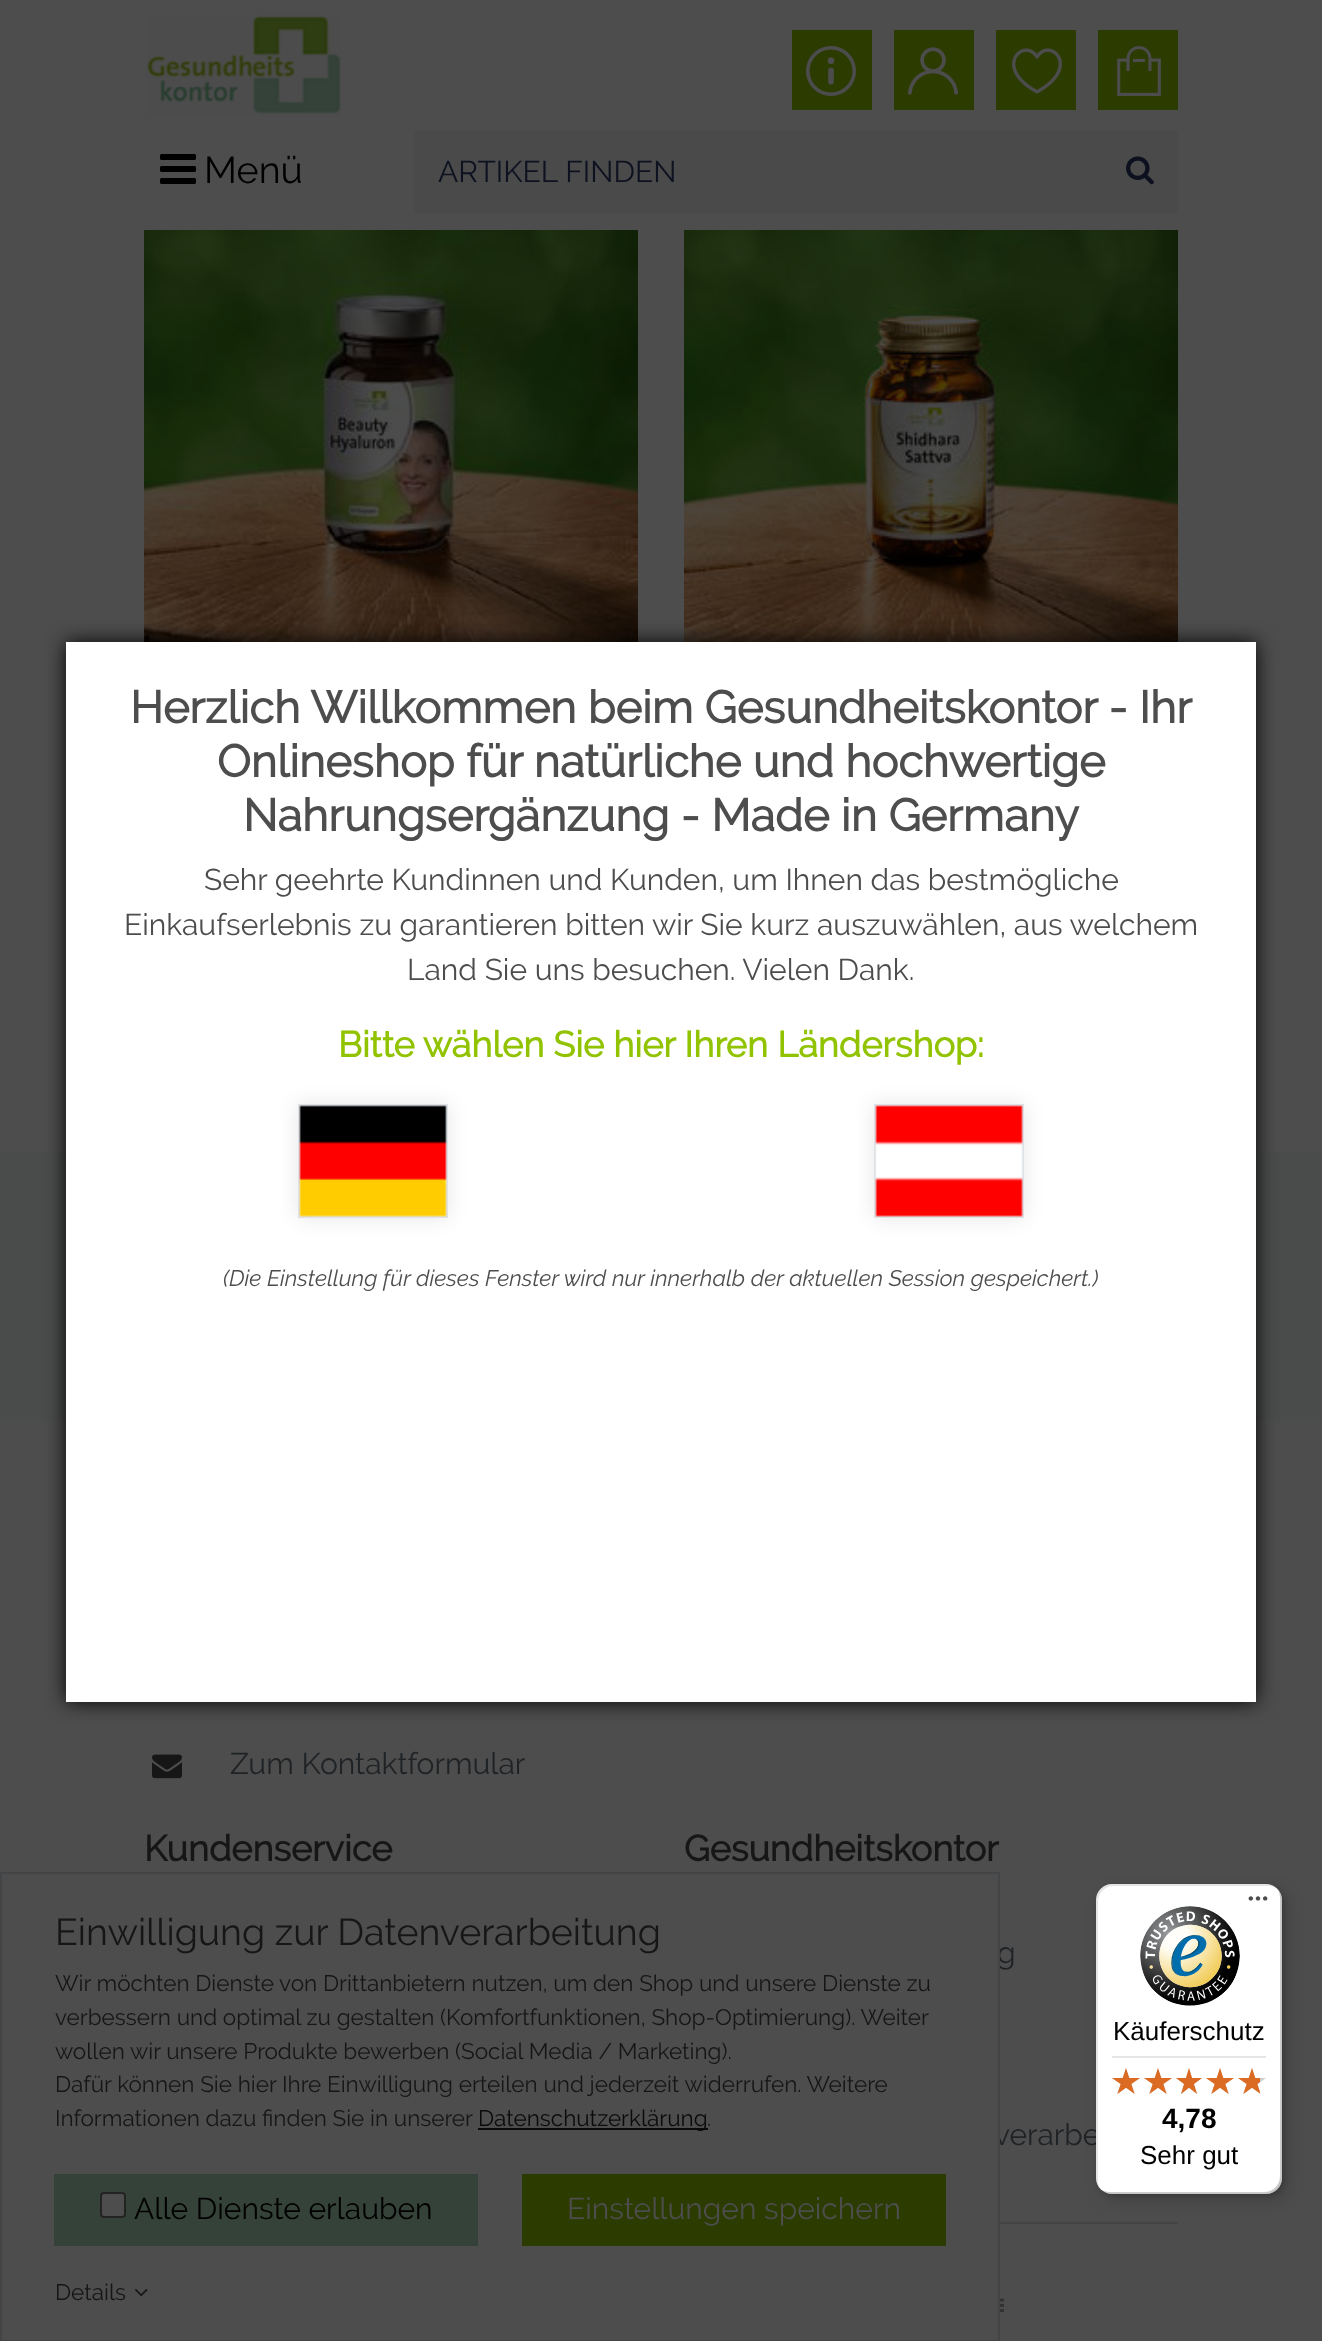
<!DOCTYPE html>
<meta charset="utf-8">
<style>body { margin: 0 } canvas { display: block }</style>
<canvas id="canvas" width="1322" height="2341"></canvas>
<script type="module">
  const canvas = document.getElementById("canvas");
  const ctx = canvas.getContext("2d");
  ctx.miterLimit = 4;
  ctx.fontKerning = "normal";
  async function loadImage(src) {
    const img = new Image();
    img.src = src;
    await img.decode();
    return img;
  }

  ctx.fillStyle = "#4d4d4d";
  ctx.fillRect(0, 0, 1322, 2341);
  ctx.drawImage(await loadImage("img1.png"), 147, 15, 194, 100);
  ctx.fillStyle = "#2c3b00";
  ctx.fillRect(792, 30, 80, 80);
  ctx.drawImage(await loadImage("img2.png"), 806, 46, 50, 50);
  ctx.fillRect(894, 30, 80, 80);
  ctx.drawImage(await loadImage("img3.png"), 908, 47, 50, 48);
  ctx.fillRect(996, 30, 80, 80);
  ctx.drawImage(await loadImage("img4.png"), 1012, 48, 50, 46);
  ctx.fillRect(1098, 30, 80, 80);
  ctx.drawImage(await loadImage("img5.png"), 1117, 46, 44, 50);
  ctx.drawImage(await loadImage("img6.png"), 160, 154, 36, 30);
  ctx.font = "37.5px Raleway";
  ctx.fillStyle = "#000000";
  ctx.fillText("Menü", 204, 183);
  ctx.fillStyle = "#4a4a4a";
  ctx.fillRect(414, 130, 764, 84);
  ctx.font = "30px Raleway";
  ctx.fillStyle = "#0d1120";
  ctx.fillText("ARTIKEL FINDEN", 438, 182);
  ctx.drawImage(await loadImage("img7.png"), 1126, 156, 28, 29);
  ctx.fillStyle = "#202326";
  ctx.fillText("verarbe", 994, 2145);
  ctx.fillStyle = "#4d4d4d";
  ctx.fillRect(994, 2129, 4, 9);
  ctx.fillStyle = "#202326";
  ctx.fillText("g", 997, 1963);
  ctx.strokeStyle = "#434445";
  ctx.lineWidth = 2;
  ctx.strokeRect(1, 1873, 998, 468);
  ctx.font = "37.5px Raleway";
  ctx.fillStyle = "#161616";
  ctx.fillText("Einwilligung zur Datenverarbeitung", 55, 1945);
  ctx.font = "22.5px Raleway";
  ctx.fillText("Wir möchten Dienste von Drittanbietern nutzen, um den Shop und unsere Dienste zu", 55, 1991);
  ctx.fillText("verbessern und optimal zu gestalten (Komfortfunktionen, Shop-Optimierung). Weiter", 55, 2025);
  ctx.fillText("wollen wir unsere Produkte bewerben (Social Media / Marketing).", 55, 2059);
  ctx.fillText("Dafür können Sie hier Ihre Einwilligung erteilen und jederzeit widerrufen. Weitere", 55, 2092);
  ctx.fillText("Informationen dazu finden Sie in unserer", 55, 2126);
  ctx.fillStyle = "#0a0b0c";
  ctx.fillRect(478, 2128, 230, 2);
  ctx.fillText("Datenschutzerklärung", 478, 2126);
  ctx.fillStyle = "#161616";
  ctx.fillText(".", 707, 2126);
  ctx.fillStyle = "#354239";
  ctx.fillRect(54, 2174, 424, 72);
  ctx.fillStyle = "#4d4d4d";
  ctx.beginPath();
  ctx.roundRect(101, 2193, 24, 24, 3);
  ctx.fill();
  ctx.strokeStyle = "#232323";
  ctx.stroke();
  ctx.font = "30px Raleway";
  ctx.fillStyle = "#000000";
  ctx.fillText("Alle Dienste erlauben", 134, 2219);
  ctx.fillStyle = "#2c3b00";
  ctx.fillRect(522, 2174, 424, 72);
  ctx.fillStyle = "#4d4d4d";
  ctx.fillText("Einstellungen speichern", 567, 2219);
  ctx.font = "22.5px Raleway";
  ctx.fillStyle = "#161616";
  ctx.fillText("Details", 55, 2300);
  ctx.drawImage(await loadImage("img8.png"), 135, 2289, 13, 8);
  ctx.drawImage(await loadImage("img9.png"), 144, 230, 494, 412);
  ctx.drawImage(await loadImage("img10.png"), 684, 230, 494, 412);
  ctx.fillStyle = "#4a4b4b";
  ctx.fillRect(0, 1152, 1322, 268);
  ctx.fillStyle = "rgba(0, 0, 0, 0.95)";
  ctx.filter = "blur(10px)";
  ctx.beginPath();
  ctx.rect(66, 642, 1190, 1060);
  ctx.fill();
  ctx.filter = "none";
  ctx.fillStyle = "#ffffff";
  ctx.fillRect(66, 642, 1190, 1060);
  ctx.font = "bold 45px Raleway";
  ctx.fillStyle = "#4d4d4d";
  ctx.fillText("Herzlich Willkommen beim Gesundheitskontor - Ihr", 130, 723);
  ctx.fillText("Onlineshop für natürliche und hochwertige", 217, 777);
  ctx.fillText("Nahrungsergänzung - Made in Germany", 243, 831);
  ctx.font = "30px Raleway";
  ctx.fillText("Sehr geehrte Kundinnen und Kunden, um Ihnen das bestmögliche", 204, 890);
  ctx.fillText("Einkaufserlebnis zu garantieren bitten wir Sie kurz auszuwählen, aus welchem", 124, 935);
  ctx.fillText("Land Sie uns besuchen. Vielen Dank.", 407, 980);
  ctx.font = "bold 36px Raleway";
  ctx.fillStyle = "#91c300";
  ctx.fillText("Bitte wählen Sie hier Ihren Ländershop:", 338, 1057);
  ctx.fillStyle = "rgba(0, 0, 0, 0.1)";
  ctx.filter = "blur(10px)";
  ctx.beginPath();
  ctx.rect(298, 1104, 150, 114);
  ctx.fill();
  ctx.filter = "none";
  ctx.strokeStyle = "#dee2e6";
  ctx.strokeRect(299, 1105, 148, 112);
  ctx.drawImage(await loadImage("img11.png"), 299, 1105, 148, 112);
  ctx.filter = "blur(10px)";
  ctx.beginPath();
  ctx.rect(874, 1104, 150, 114);
  ctx.fill();
  ctx.filter = "none";
  ctx.strokeRect(875, 1105, 148, 112);
  ctx.drawImage(await loadImage("img12.png"), 875, 1105, 148, 112);
  ctx.font = "italic 22.5px Raleway";
  ctx.fillStyle = "#4d4d4d";
  ctx.fillText("(Die Einstellung für dieses Fenster wird nur innerhalb der aktuellen Session gespeichert.)", 223, 1286);
  ctx.drawImage(await loadImage("img13.png"), 152, 1754, 30, 25);
  ctx.font = "30px Raleway";
  ctx.fillStyle = "#202326";
  ctx.fillText("Zum Kontaktformular", 230, 1774);
  ctx.font = "bold 36px Raleway";
  ctx.fillStyle = "#161616";
  ctx.fillText("Kundenservice", 144, 1861);
  ctx.fillText("Gesundheitskontor", 684, 1861);
  ctx.fillStyle = "#434445";
  ctx.fillRect(1000, 2222, 178, 2);
  ctx.drawImage(await loadImage("img14.png"), 1000, 2298, 4, 14);
  ctx.fillStyle = "rgba(0, 0, 0, 0.15)";
  ctx.filter = "blur(8px)";
  ctx.beginPath();
  ctx.roundRect(1102, 1890, 186, 310, 16);
  ctx.fill();
  ctx.filter = "none";
  ctx.filter = "blur(2px)";
  ctx.beginPath();
  ctx.roundRect(1098, 1886, 186, 310, 16);
  ctx.fill();
  ctx.filter = "none";
  ctx.fillStyle = "#ffffff";
  ctx.beginPath();
  ctx.roundRect(1096, 1884, 186, 310, 16);
  ctx.fill();
  ctx.fillStyle = "rgba(0, 0, 0, 0.1)";
  ctx.beginPath();
  ctx.moveTo(1114, 1886);
  ctx.lineTo(1268, 1886);
  ctx.bezierCurveTo(1272, 1886, 1275, 1887, 1278, 1889);
  ctx.bezierCurveTo(1275, 1886, 1271, 1884, 1266, 1884);
  ctx.lineTo(1112, 1884);
  ctx.bezierCurveTo(1103, 1884, 1096, 1891, 1096, 1900);
  ctx.lineTo(1096, 2178);
  ctx.bezierCurveTo(1096, 2183, 1098, 2187, 1101, 2190);
  ctx.bezierCurveTo(1099, 2187, 1098, 2184, 1098, 2180);
  ctx.lineTo(1098, 1902);
  ctx.bezierCurveTo(1098, 1893, 1105, 1886, 1114, 1886);
  ctx.closePath();
  ctx.fill();
  ctx.fillStyle = "rgba(0, 0, 0, 0.2)";
  ctx.beginPath();
  ctx.moveTo(1100, 2189);
  ctx.bezierCurveTo(1103, 2192, 1107, 2194, 1112, 2194);
  ctx.lineTo(1266, 2194);
  ctx.bezierCurveTo(1275, 2194, 1282, 2187, 1282, 2178);
  ctx.lineTo(1282, 1900);
  ctx.bezierCurveTo(1282, 1895, 1280, 1891, 1277, 1888);
  ctx.bezierCurveTo(1279, 1891, 1280, 1894, 1280, 1898);
  ctx.lineTo(1280, 2176);
  ctx.bezierCurveTo(1280, 2185, 1273, 2192, 1264, 2192);
  ctx.lineTo(1110, 2192);
  ctx.bezierCurveTo(1106, 2192, 1103, 2191, 1100, 2189);
  ctx.closePath();
  ctx.fill();
  ctx.fillStyle = "rgba(50, 50, 50, 0.2)";
  ctx.beginPath();
  ctx.moveTo(1101, 2189);
  ctx.bezierCurveTo(1104, 2192, 1108, 2194, 1112, 2194);
  ctx.lineTo(1266, 2194);
  ctx.bezierCurveTo(1275, 2194, 1282, 2187, 1282, 2178);
  ctx.lineTo(1282, 1900);
  ctx.bezierCurveTo(1282, 1896, 1280, 1892, 1277, 1889);
  ctx.bezierCurveTo(1280, 1892, 1281, 1895, 1281, 1899);
  ctx.lineTo(1281, 2177);
  ctx.bezierCurveTo(1281, 2186, 1274, 2193, 1265, 2193);
  ctx.lineTo(1111, 2193);
  ctx.bezierCurveTo(1107, 2193, 1104, 2192, 1101, 2189);
  ctx.closePath();
  ctx.fill();
  ctx.fillStyle = "rgba(255, 255, 255, 0.3)";
  ctx.beginPath();
  ctx.moveTo(1101, 2189);
  ctx.bezierCurveTo(1104, 2192, 1108, 2194, 1112, 2194);
  ctx.lineTo(1266, 2194);
  ctx.bezierCurveTo(1275, 2194, 1282, 2187, 1282, 2178);
  ctx.lineTo(1282, 1900);
  ctx.bezierCurveTo(1282, 1896, 1280, 1892, 1277, 1889);
  ctx.bezierCurveTo(1280, 1892, 1281, 1895, 1281, 1899);
  ctx.lineTo(1281, 2177);
  ctx.bezierCurveTo(1281, 2186, 1274, 2193, 1265, 2193);
  ctx.lineTo(1111, 2193);
  ctx.bezierCurveTo(1107, 2193, 1104, 2192, 1101, 2189);
  ctx.closePath();
  ctx.fill();
  ctx.drawImage(await loadImage("img15.png"), 1248, 1896, 20, 5);
  ctx.drawImage(await loadImage("img16.png"), 1140, 1906, 100, 100);
  ctx.font = "26px Liberation Sans";
  ctx.fillStyle = "#000000";
  ctx.fillText("Käuferschutz", 1113, 2040);
  ctx.fillStyle = "#e5e5e5";
  ctx.fillRect(1112, 2056, 154, 2);
  ctx.drawImage(await loadImage("img17.png"), 1112, 2068, 28, 26);
  ctx.drawImage(await loadImage("img17.png"), 1144, 2068, 28, 26);
  ctx.drawImage(await loadImage("img18.png"), 1176, 2068, 26, 26);
  ctx.drawImage(await loadImage("img17.png"), 1206, 2068, 28, 26);
  ctx.drawImage(await loadImage("img17.png"), 1238, 2068, 28, 26);
  ctx.drawImage(await loadImage("img19.png"), 1112, 2068, 28, 26);
  ctx.drawImage(await loadImage("img19.png"), 1144, 2068, 28, 26);
  ctx.drawImage(await loadImage("img20.png"), 1176, 2068, 26, 26);
  ctx.drawImage(await loadImage("img19.png"), 1206, 2068, 28, 26);
  ctx.drawImage(await loadImage("img21.png"), 1238, 2068, 22, 26);
  ctx.font = "bold 28px Liberation Sans";
  ctx.fillStyle = "#000000";
  ctx.fillText("4,78", 1162, 2128);
  ctx.font = "26px Liberation Sans";
  ctx.fillText("Sehr gut", 1140, 2164);
</script>
